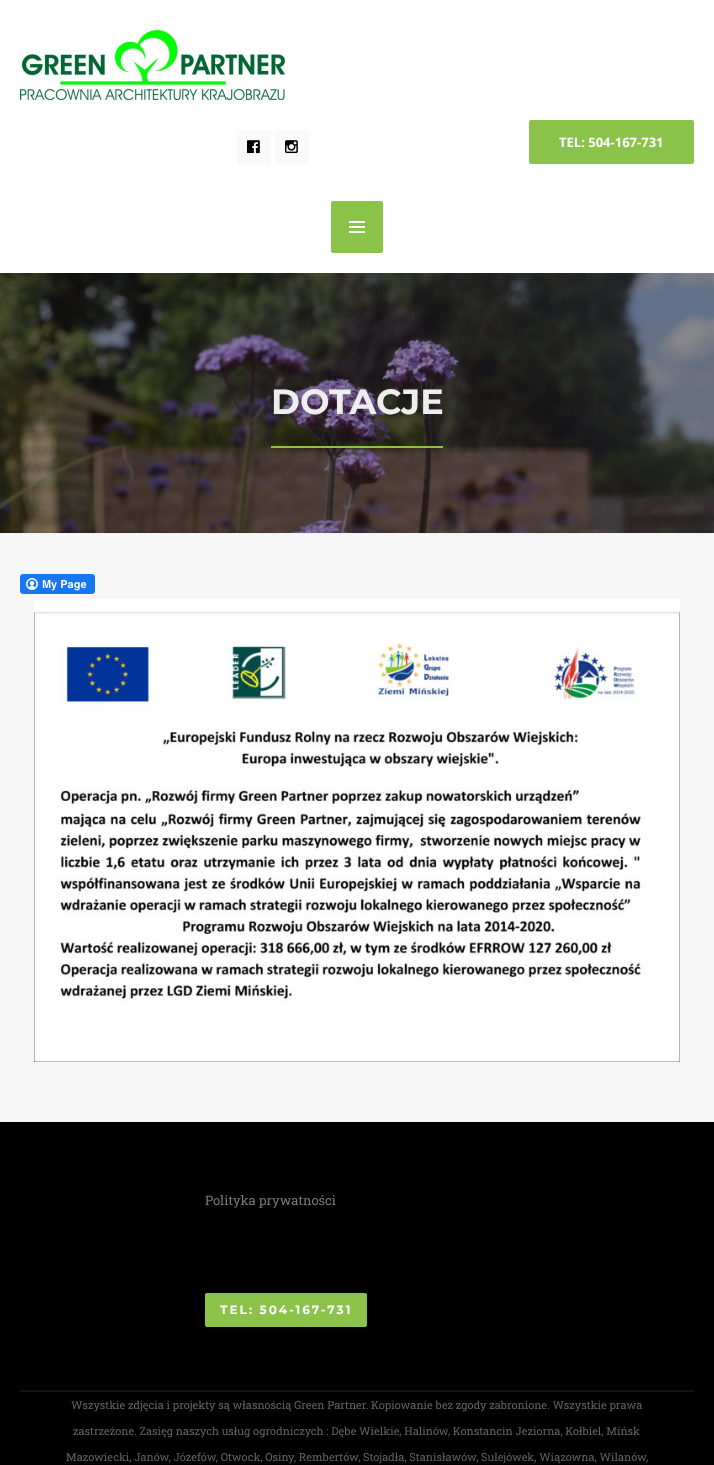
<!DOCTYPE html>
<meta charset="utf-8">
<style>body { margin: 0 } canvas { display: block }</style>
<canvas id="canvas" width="714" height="1465"></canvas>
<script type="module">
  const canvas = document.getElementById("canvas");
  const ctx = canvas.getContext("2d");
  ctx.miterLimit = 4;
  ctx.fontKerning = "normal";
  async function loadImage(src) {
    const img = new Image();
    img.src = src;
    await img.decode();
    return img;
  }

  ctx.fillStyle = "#f7f7f7";
  ctx.fillRect(0, 0, 714, 1465);
  ctx.fillStyle = "#ffffff";
  ctx.fillRect(0, 0, 714, 273);
  ctx.drawImage(await loadImage("img1.png"), 20, 30, 265, 70);
  ctx.fillStyle = "#fafafa";
  ctx.fillRect(237, 130, 34, 34);
  ctx.drawImage(await loadImage("img2.png"), 247, 140, 13, 14);
  ctx.fillRect(275, 130, 34, 34);
  ctx.drawImage(await loadImage("img3.png"), 285, 140, 13, 14);
  ctx.fillStyle = "#8bc34a";
  ctx.beginPath();
  ctx.roundRect(529, 120, 165, 44, 2);
  ctx.fill();
  ctx.font = "bold 13px Open Sans";
  ctx.fillStyle = "#ffffff";
  ctx.fillText("TEL: 504-167-731", 559, 147);
  ctx.fillStyle = "#8bc34a";
  ctx.beginPath();
  ctx.roundRect(331, 201, 52, 52, 2);
  ctx.fill();
  ctx.drawImage(await loadImage("img4.png"), 349, 221, 16, 12);
  ctx.fillStyle = "#0a0000";
  ctx.fillRect(0, 273, 714, 260);
  ctx.fillStyle = "#efefef";
  ctx.fillRect(0, 533, 714, 1);
  ctx.drawImage(await loadImage("img5.png"), 0, 273, 714, 260);
  ctx.fillStyle = "#8bc34a";
  ctx.fillRect(271, 446, 172, 2);
  ctx.font = "bold 35px Montserrat";
  ctx.fillStyle = "#eeeeee";
  ctx.fillText("DOTACJE", 271, 414);
  ctx.drawImage(await loadImage("img6.png"), 20, 574, 75, 20);
  ctx.drawImage(await loadImage("img7.png"), 34, 599, 646, 463);
  ctx.fillStyle = "#000000";
  ctx.fillRect(0, 1122, 714, 343);
  ctx.font = "13px Roboto Slab";
  ctx.fillStyle = "#7a7a7a";
  ctx.fillText("Polityka prywatności", 205, 1205);
  ctx.fillStyle = "#8bc34a";
  ctx.beginPath();
  ctx.roundRect(205, 1293, 162, 34, 2);
  ctx.fill();
  ctx.letterSpacing = "2px";
  ctx.font = "bold 12px Montserrat";
  ctx.fillStyle = "#ffffff";
  ctx.fillText("TEL: 504-167-731", 220, 1314);
  ctx.fillStyle = "#141414";
  ctx.fillRect(20, 1390, 674, 2);
  ctx.letterSpacing = "0px";
  ctx.font = "11px Roboto Slab";
  ctx.fillStyle = "#636363";
  ctx.fillText("Wszystkie zdjęcia i projekty są własnością Green Partner. Kopiowanie bez zgody zabronione. Wszystkie prawa", 71, 1409);
  ctx.fillText("zastrzeżone. Zasięg naszych usług ogrodniczych : Dębe Wielkie, Halinów, Konstancin Jeziorna, Kołbiel, Mińsk", 73, 1435);
  ctx.fillText("Mazowiecki, Janów, Józefów, Otwock, Osiny, Rembertów, Stojadła, Stanisławów, Sulejówek, Wiązowna, Wilanów,", 66, 1461);
</script>
